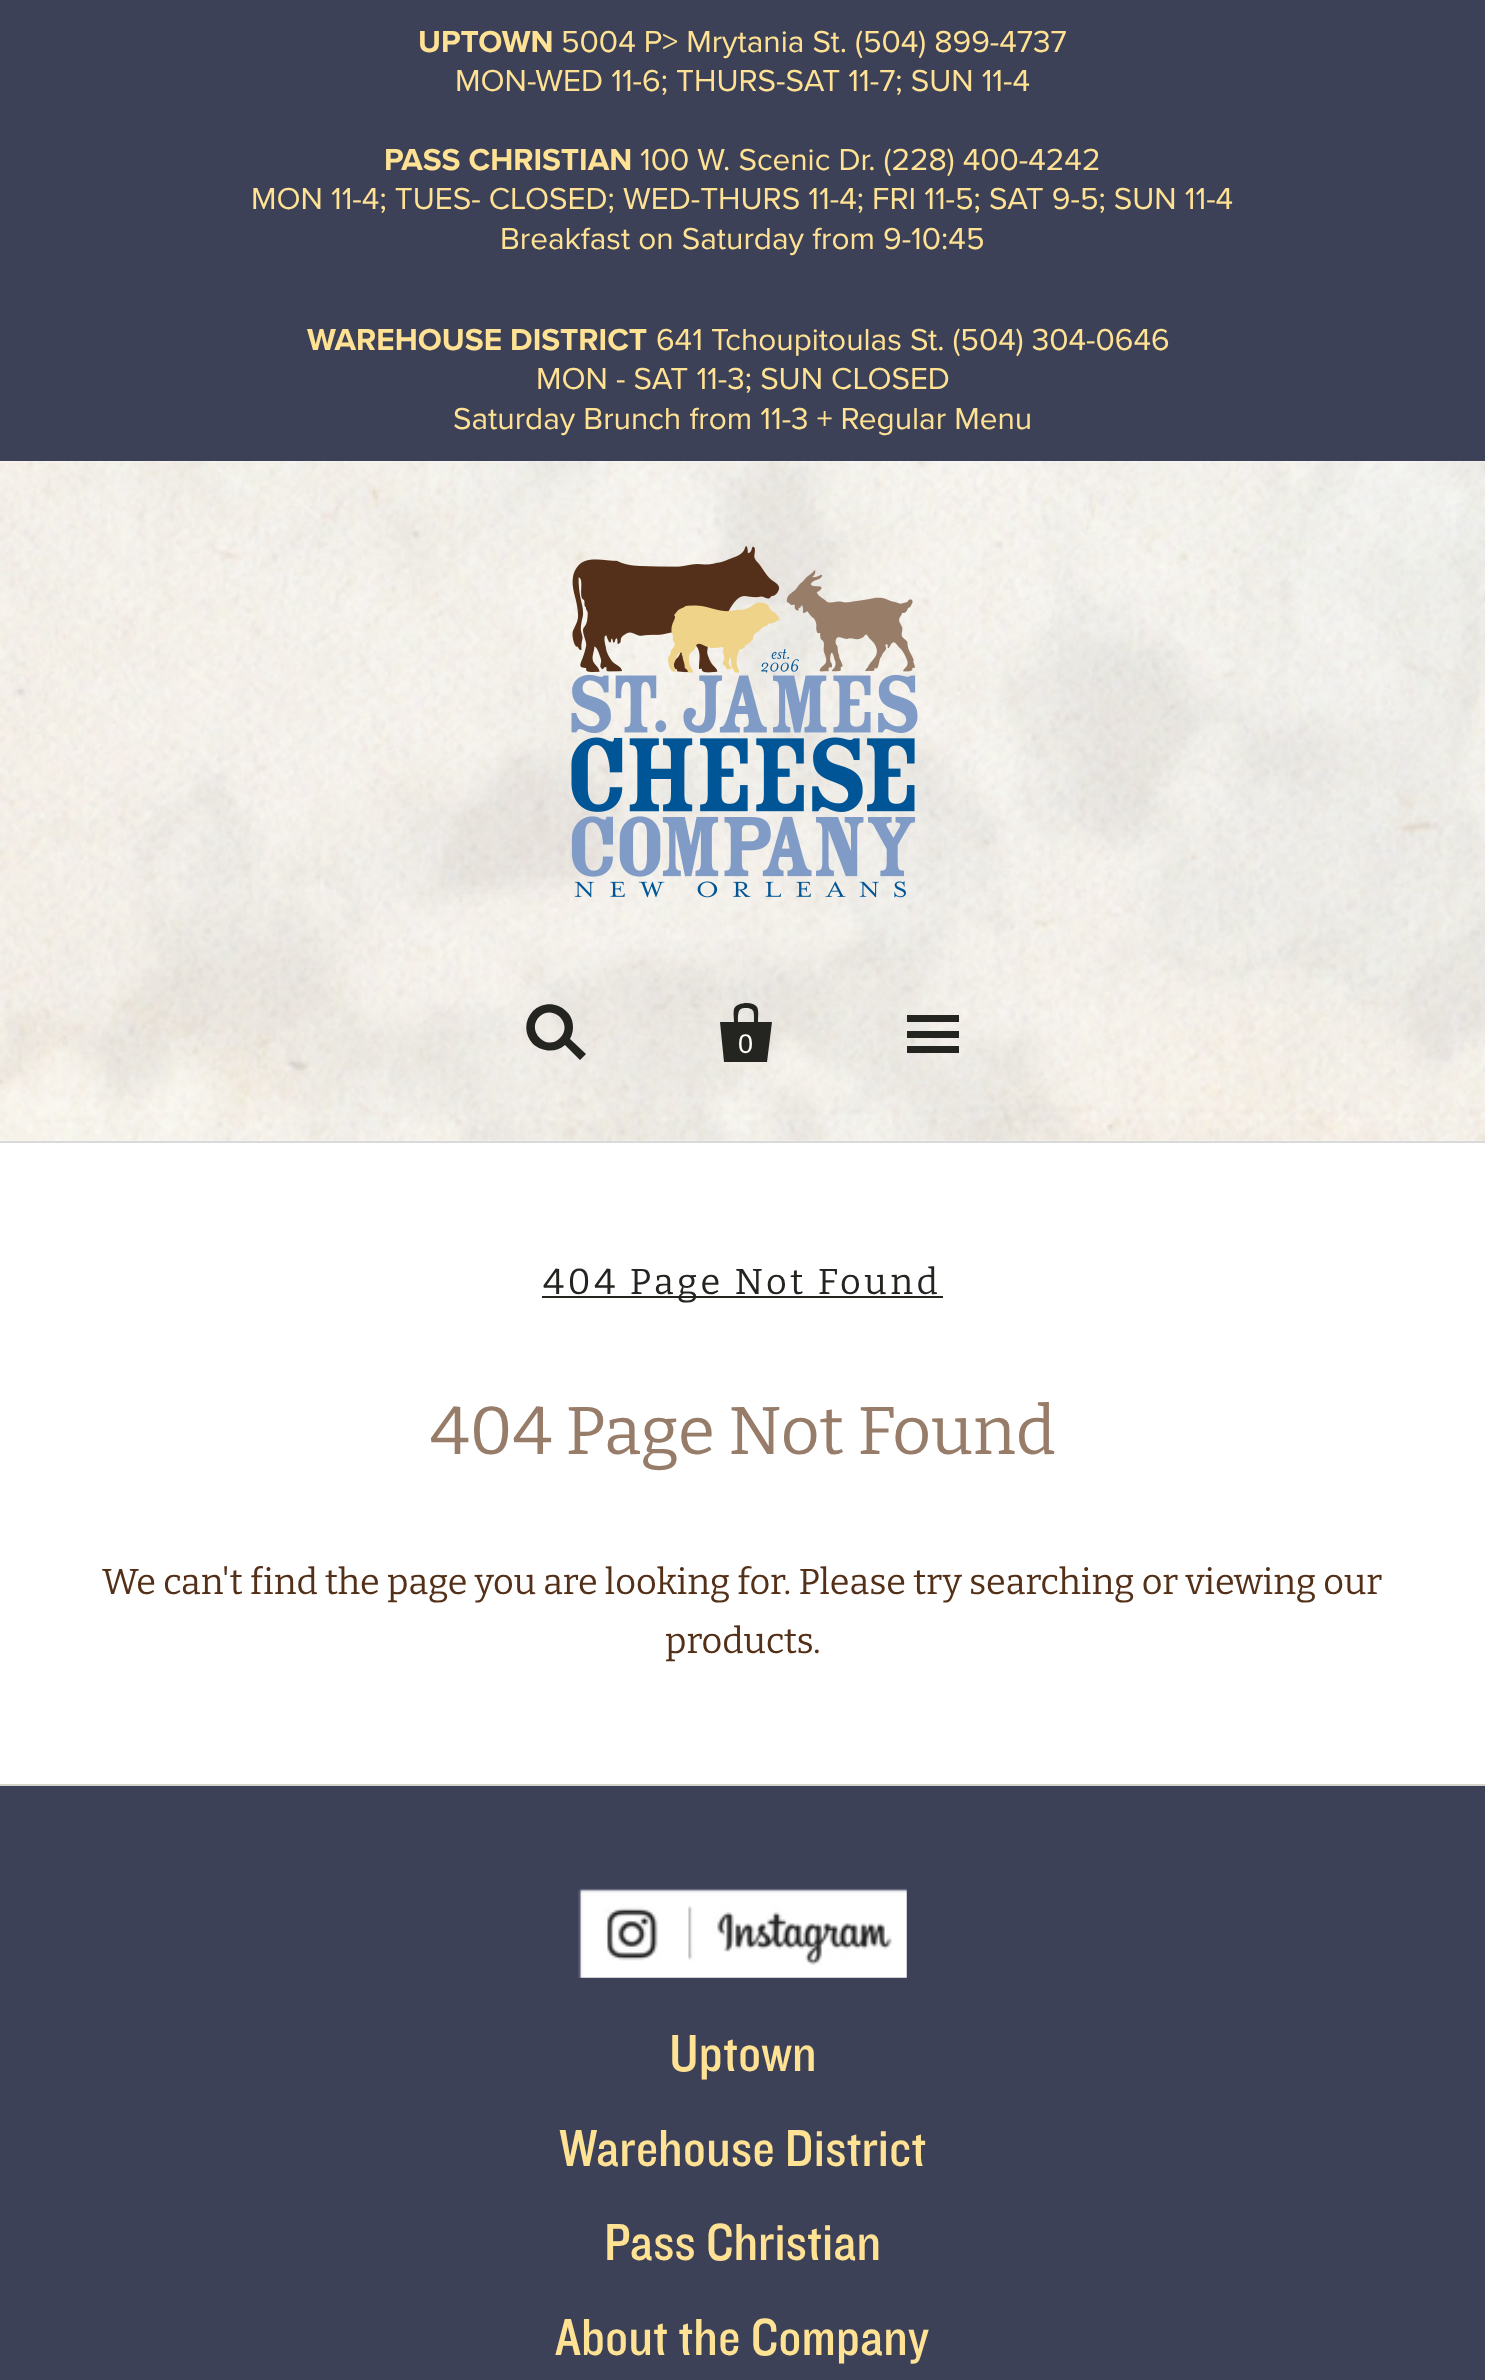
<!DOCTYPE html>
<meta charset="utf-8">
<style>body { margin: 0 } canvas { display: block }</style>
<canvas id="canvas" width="1485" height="2380"></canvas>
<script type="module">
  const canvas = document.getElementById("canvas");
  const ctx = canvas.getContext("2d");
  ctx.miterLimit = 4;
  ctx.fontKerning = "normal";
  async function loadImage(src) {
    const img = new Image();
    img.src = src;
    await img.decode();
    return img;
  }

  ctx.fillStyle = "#ffffff";
  ctx.fillRect(0, 0, 1485, 2380);
  ctx.fillStyle = "#3c4158";
  ctx.fillRect(0, 0, 1485, 461);
  ctx.font = "bold 31.5px Proxima Nova";
  ctx.fillStyle = "#ffe293";
  ctx.fillText("UPTOWN", 418, 52);
  ctx.font = "31.5px Proxima Nova";
  ctx.fillText("5004 P> Mrytania St. (504) 899-4737", 561, 52);
  ctx.fillText("MON-WED 11-6; THURS-SAT 11-7; SUN 11-4", 455, 91);
  ctx.font = "bold 31.5px Proxima Nova";
  ctx.fillText("PASS CHRISTIAN", 384, 170);
  ctx.font = "31.5px Proxima Nova";
  ctx.fillText("100 W. Scenic Dr. (228) 400-4242", 640, 170);
  ctx.fillText("MON 11-4; TUES- CLOSED; WED-THURS 11-4; FRI 11-5; SAT 9-5; SUN 11-4", 251, 209);
  ctx.fillText("Breakfast on Saturday from 9-10:45", 500, 249);
  ctx.font = "bold 31.5px Proxima Nova";
  ctx.fillText("WAREHOUSE DISTRICT", 307, 350);
  ctx.font = "31.5px Proxima Nova";
  ctx.fillText("641 Tchoupitoulas St. (504) 304-0646", 656, 350);
  ctx.fillText("MON - SAT 11-3; SUN CLOSED", 536, 389);
  ctx.fillText("Saturday Brunch from 11-3 + Regular Menu", 453, 429);
  ctx.drawImage(await loadImage("img1.png"), 0, 461, 1485, 680);
  ctx.drawImage(await loadImage("img2.png"), 571, 546, 347, 352);
  ctx.fillStyle = "#242420";
  ctx.beginPath();
  ctx.moveTo(570, 1039);
  ctx.bezierCurveTo(575, 1030, 574, 1018, 566, 1011);
  ctx.bezierCurveTo(557, 1002, 542, 1002, 533, 1011);
  ctx.bezierCurveTo(524, 1020, 524, 1035, 533, 1044);
  ctx.bezierCurveTo(542, 1052, 556, 1053, 565, 1045);
  ctx.lineTo(580, 1060);
  ctx.lineTo(586, 1054);
  ctx.closePath();
  ctx.moveTo(560, 1038);
  ctx.bezierCurveTo(547, 1052, 526, 1031, 539, 1017);
  ctx.bezierCurveTo(553, 1003, 574, 1024, 560, 1038);
  ctx.closePath();
  ctx.fill();
  ctx.beginPath();
  ctx.moveTo(758, 1022);
  ctx.lineTo(772, 1022);
  ctx.lineTo(767, 1062);
  ctx.lineTo(724, 1062);
  ctx.lineTo(720, 1022);
  ctx.lineTo(734, 1022);
  ctx.bezierCurveTo(734, 1018, 733, 1013, 734, 1009);
  ctx.bezierCurveTo(737, 1002, 753, 1001, 757, 1007);
  ctx.bezierCurveTo(759, 1011, 758, 1017, 758, 1022);
  ctx.closePath();
  ctx.moveTo(744, 1008);
  ctx.bezierCurveTo(737, 1008, 738, 1017, 738, 1022);
  ctx.lineTo(754, 1022);
  ctx.bezierCurveTo(754, 1011, 755, 1008, 744, 1008);
  ctx.closePath();
  ctx.fill();
  ctx.letterSpacing = "2px";
  ctx.font = "27px Liberation Sans";
  ctx.fillStyle = "#ffffff";
  ctx.fillText("0", 738, 1053);
  ctx.fillStyle = "#242420";
  ctx.fillRect(907, 1031, 52, 7);
  ctx.fillRect(907, 1015, 52, 7);
  ctx.fillRect(907, 1046, 52, 7);
  ctx.fillStyle = "#d9d9d9";
  ctx.fillRect(0, 1141, 1485, 2);
  ctx.fillStyle = "#242420";
  ctx.fillRect(542, 1296, 401, 2);
  ctx.letterSpacing = "3.6px";
  ctx.font = "36px Bitter";
  ctx.fillText("404 Page Not Found", 543, 1294);
  ctx.letterSpacing = "0px";
  ctx.font = "67.5px Bitter";
  ctx.fillStyle = "#977c69";
  ctx.fillText("404 Page Not Found", 430, 1454);
  ctx.font = "36px Bitter";
  ctx.fillStyle = "#543019";
  ctx.fillText("We can't find the page you are looking for. Please try searching or viewing our", 102, 1594);
  ctx.fillText("products", 665, 1653);
  ctx.fillText(".", 813, 1653);
  ctx.fillStyle = "#3c4158";
  ctx.fillRect(0, 1786, 1485, 594);
  ctx.fillStyle = "#d3d3ca";
  ctx.fillRect(0, 1784, 1485, 2);
  ctx.drawImage(await loadImage("img3.png"), 578, 1888, 329, 90);
  ctx.font = "300 54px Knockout";
  ctx.fillStyle = "#ffe293";
  ctx.fillText("Uptown", 669, 2071);
  ctx.fillText("Warehouse District", 559, 2166);
  ctx.fillText("Pass Christian", 604, 2260);
  ctx.fillText("About the Company", 555, 2355);
</script>
